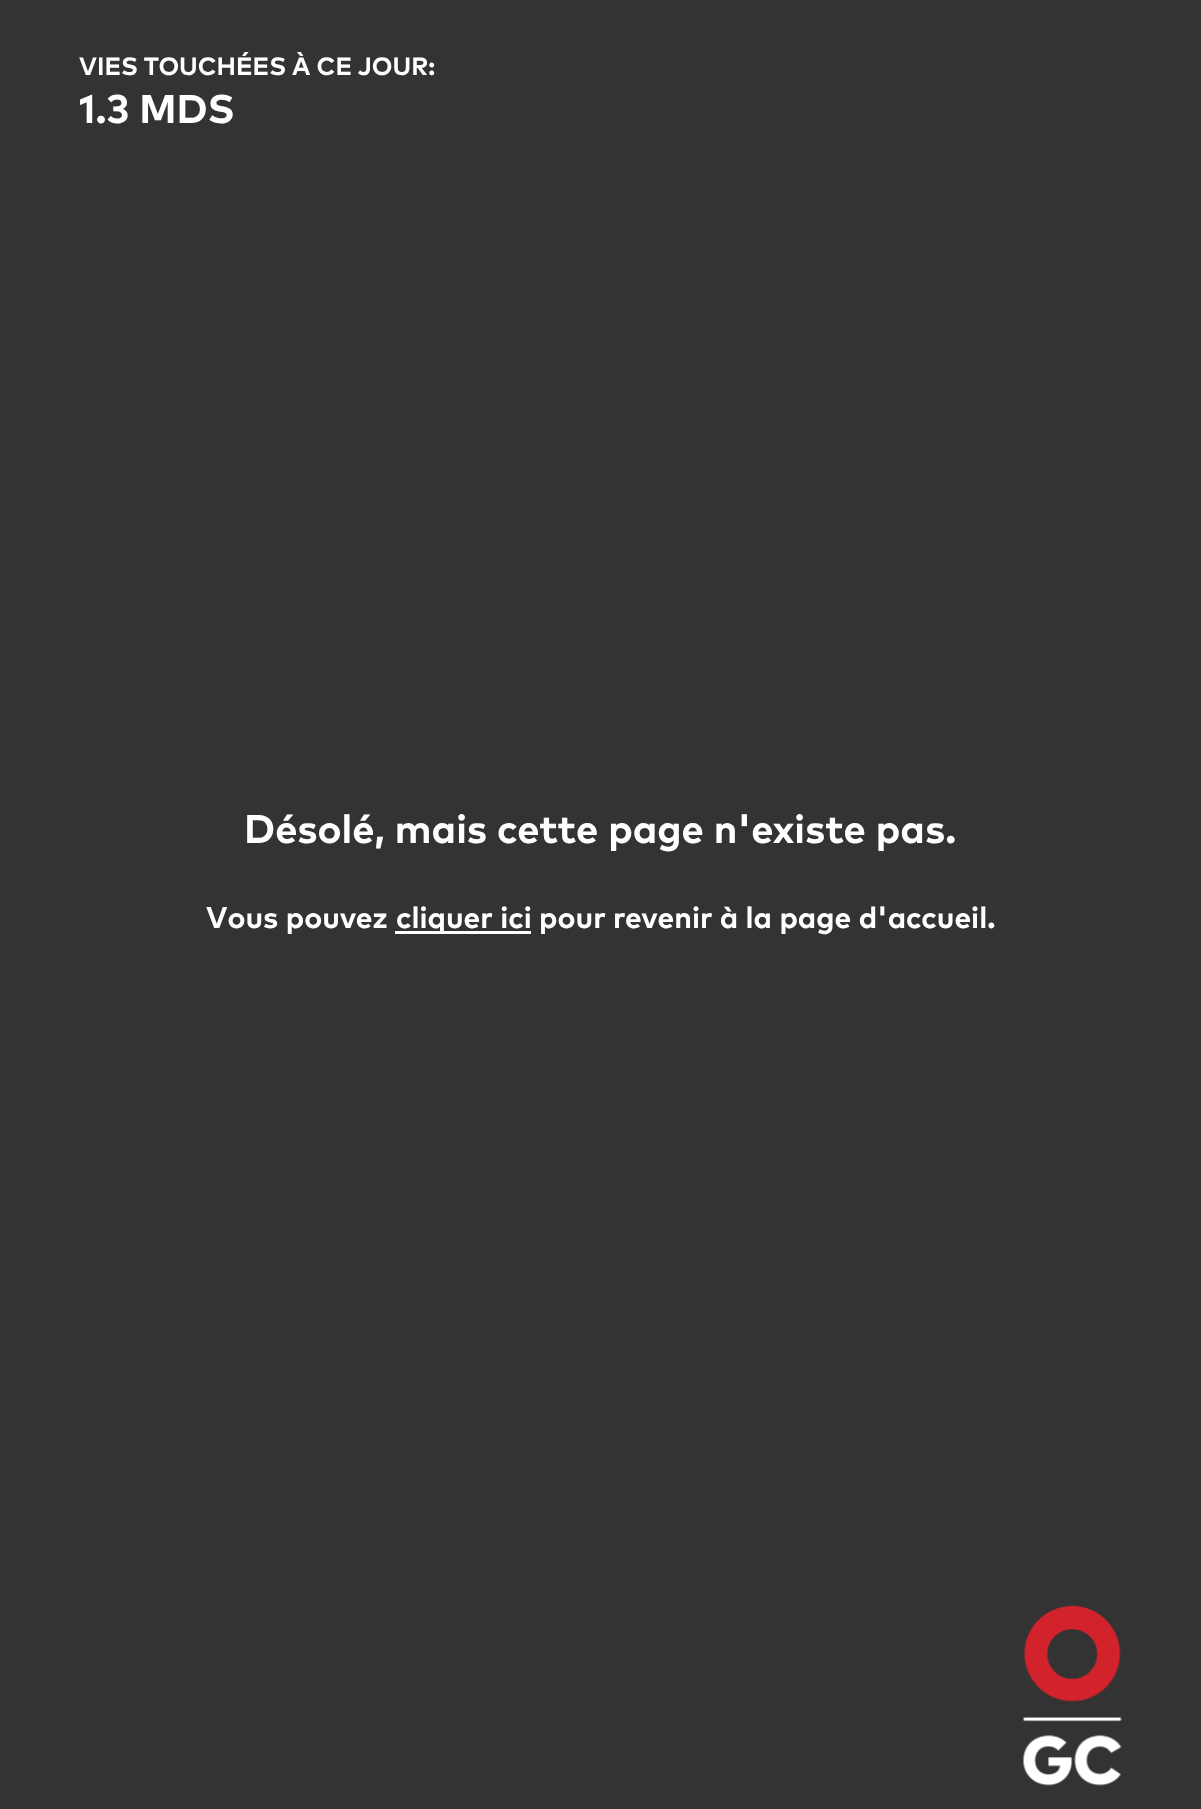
<!DOCTYPE html>
<meta charset="utf-8">
<style>body { margin: 0 } canvas { display: block }</style>
<canvas id="canvas" width="1201" height="1809"></canvas>
<script type="module">
  const canvas = document.getElementById("canvas");
  const ctx = canvas.getContext("2d");
  ctx.miterLimit = 4;
  ctx.fontKerning = "normal";
  async function loadImage(src) {
    const img = new Image();
    img.src = src;
    await img.decode();
    return img;
  }

  ctx.fillStyle = "#333333";
  ctx.fillRect(0, 0, 1201, 1809);
  ctx.font = "25px 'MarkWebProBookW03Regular'";
  ctx.fillStyle = "#ffffff";
  ctx.fillText("VIES TOUCHÉES À CE JOUR:", 79, 75);
  ctx.font = "40px 'MarkWebProBookW03Regular'";
  ctx.fillText("1.3 MDS", 79, 123);
  ctx.fillText("Désolé, mais cette page n'existe pas.", 244, 843);
  ctx.font = "30px 'MarkWebProBookW03Regular'";
  ctx.fillText("Vous pouvez", 206, 928);
  ctx.fillRect(395, 931, 136, 3);
  ctx.fillText("cliquer ici pour revenir à la page d'accueil.", 396, 928);
  ctx.drawImage(await loadImage("img1.png"), 1023, 1606, 99, 180);
</script>
